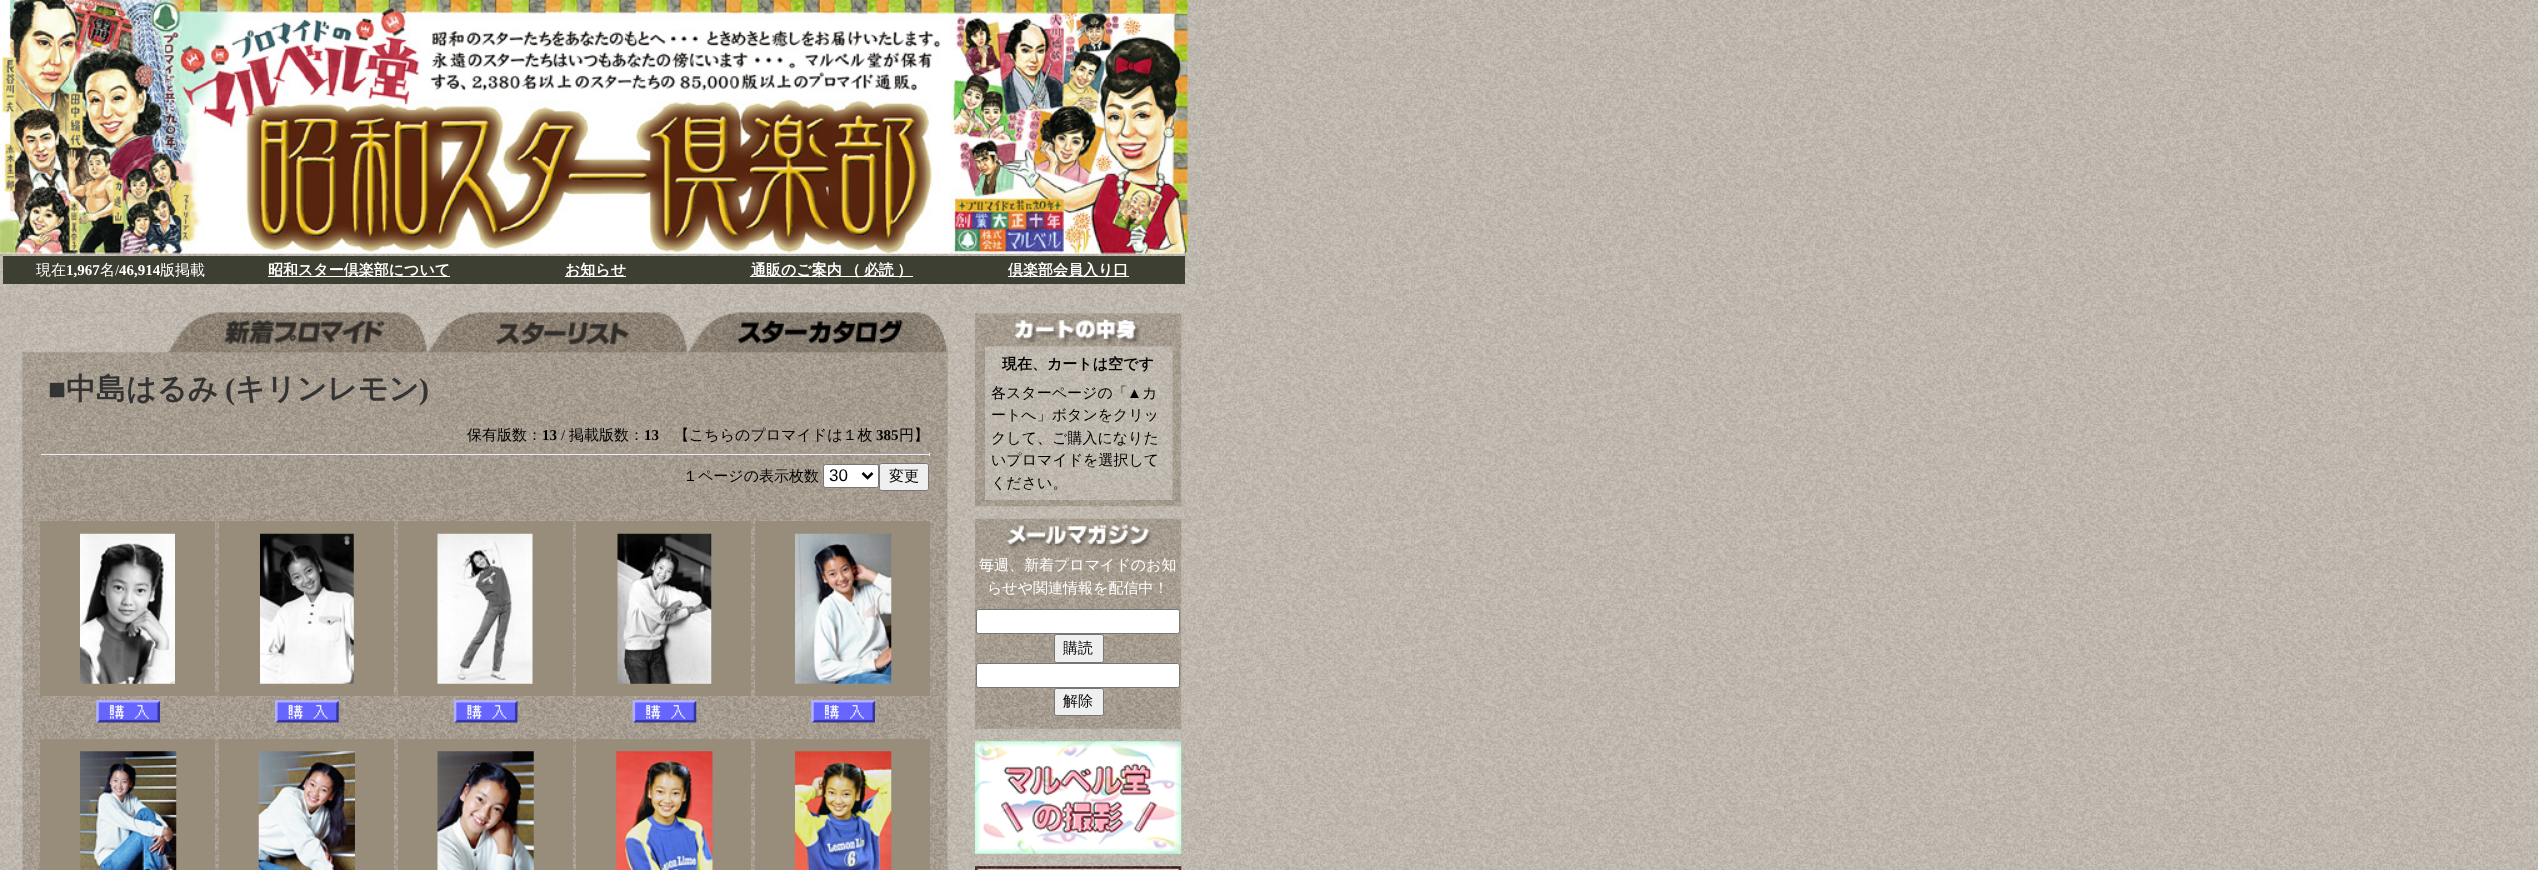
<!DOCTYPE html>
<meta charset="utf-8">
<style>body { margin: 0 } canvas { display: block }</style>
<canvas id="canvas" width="2538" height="870"></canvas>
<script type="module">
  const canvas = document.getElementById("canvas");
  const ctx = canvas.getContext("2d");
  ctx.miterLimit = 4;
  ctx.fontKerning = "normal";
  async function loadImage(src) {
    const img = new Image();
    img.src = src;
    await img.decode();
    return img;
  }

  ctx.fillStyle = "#ffffff";
  ctx.fillRect(0, 0, 2538, 870);
  ctx.drawImage(await loadImage("img1.png"), 0, 0, 2538, 870);
  ctx.drawImage(await loadImage("img2.png"), 0, 0, 1188, 254);
  ctx.fillStyle = "#3d3f32";
  ctx.fillRect(3, 256, 1182, 28);
  ctx.font = "500 15px WenQuanYi Zen Hei";
  ctx.fillStyle = "#ffffff";
  ctx.fillText("現在", 36, 275);
  ctx.font = "bold 15px Liberation Serif";
  ctx.fillText("1,967", 66, 275);
  ctx.font = "500 15px WenQuanYi Zen Hei";
  ctx.fillText("名", 100, 275);
  ctx.font = "15px Liberation Serif";
  ctx.fillText("/", 115, 275);
  ctx.font = "bold 15px Liberation Serif";
  ctx.fillText("46,914", 119, 275);
  ctx.font = "500 15px WenQuanYi Zen Hei";
  ctx.fillText("版掲載", 160, 275);
  ctx.fillRect(268, 276, 182, 1);
  ctx.font = "bold 15px WenQuanYi Zen Hei";
  ctx.fillText("昭和スター倶楽部について", 268, 275);
  ctx.fillRect(565, 276, 61, 1);
  ctx.fillText("お知らせ", 565, 275);
  ctx.fillRect(750, 276, 163, 1);
  ctx.wordSpacing = "-1px";
  ctx.fillText("通販のご案内 （ 必読 ）", 751, 275);
  ctx.fillRect(1008, 276, 121, 1);
  ctx.wordSpacing = "0px";
  ctx.fillText("倶楽部会員入り口", 1008, 275);
  ctx.drawImage(await loadImage("img3.png"), 22, 312, 926, 146);
  ctx.drawImage(await loadImage("img4.png"), 22, 312, 926, 41);
  ctx.drawImage(await loadImage("img8.png"), 22, 352, 926, 518);
  ctx.drawImage(await loadImage("img5.png"), 167, 312, 261, 41);
  ctx.drawImage(await loadImage("img6.png"), 427, 312, 261, 41);
  ctx.drawImage(await loadImage("img7.png"), 687, 312, 261, 41);
  ctx.font = "bold 30px Liberation Serif";
  ctx.fillStyle = "#333333";
  ctx.fillText("■", 48, 399);
  ctx.font = "bold 30px WenQuanYi Zen Hei";
  ctx.fillText("中島はるみ", 66, 399);
  ctx.font = "bold 30px Liberation Serif";
  ctx.fillText("(", 225, 399);
  ctx.font = "bold 30px WenQuanYi Zen Hei";
  ctx.fillText("キリンレモン", 235, 399);
  ctx.font = "bold 30px Liberation Serif";
  ctx.fillText(")", 419, 399);
  ctx.font = "500 15px WenQuanYi Zen Hei";
  ctx.fillStyle = "#000000";
  ctx.fillText("保有版数：", 467, 440);
  ctx.font = "bold 15px Liberation Serif";
  ctx.fillText("13", 542, 440);
  ctx.font = "15px Liberation Serif";
  ctx.fillText("/", 561, 440);
  ctx.font = "500 15px WenQuanYi Zen Hei";
  ctx.fillText("掲載版数：", 569, 440);
  ctx.font = "bold 15px Liberation Serif";
  ctx.fillText("13", 644, 440);
  ctx.font = "500 15px WenQuanYi Zen Hei";
  ctx.fillText("【こちらのプロマイドは１枚", 674, 440);
  ctx.font = "bold 15px Liberation Serif";
  ctx.fillText("385", 876, 440);
  ctx.font = "500 15px WenQuanYi Zen Hei";
  ctx.fillText("円】", 899, 440);
  ctx.fillStyle = "#9f9f9f";
  ctx.fillRect(40, 453, 890, 1);
  ctx.fillStyle = "#eeeeee";
  ctx.fillRect(929, 453, 1, 3);
  ctx.fillRect(40, 454, 890, 1);
  ctx.fillStyle = "#9f9f9f";
  ctx.fillRect(40, 453, 1, 3);
  ctx.fillStyle = "#000000";
  ctx.fillText("１ページの表示枚数", 683, 481);
  ctx.fillStyle = "#ffffff";
  ctx.beginPath();
  ctx.roundRect(823.5, 464.5, 55, 23, 2);
  ctx.fill();
  ctx.strokeStyle = "#767676";
  ctx.stroke();
  ctx.beginPath();
  ctx.moveTo(862.5, 473);
  ctx.lineTo(867.5, 478);
  ctx.lineTo(872.5, 473);
  ctx.strokeStyle = "#000000";
  ctx.lineWidth = 2.5;
  ctx.stroke();
  ctx.font = "17px Liberation Sans";
  ctx.fillStyle = "#000000";
  ctx.fillText("30", 829, 481);
  ctx.fillStyle = "#efefef";
  ctx.beginPath();
  ctx.roundRect(879.5, 463.5, 49, 27, 2);
  ctx.fill();
  ctx.strokeStyle = "#767676";
  ctx.lineWidth = 1;
  ctx.stroke();
  ctx.font = "500 15px WenQuanYi Zen Hei";
  ctx.fillStyle = "#000000";
  ctx.fillText("変更", 889, 481);
  ctx.fillStyle = "#988c7b";
  ctx.fillRect(40, 521, 175, 175);
  ctx.drawImage(await loadImage("img9.png"), 80, 533, 95, 151);
  ctx.drawImage(await loadImage("img10.png"), 96, 700, 64, 23);
  ctx.fillRect(219, 521, 175, 175);
  ctx.drawImage(await loadImage("img11.png"), 260, 533, 94, 151);
  ctx.drawImage(await loadImage("img12.png"), 275, 700, 64, 23);
  ctx.fillRect(398, 521, 175, 175);
  ctx.drawImage(await loadImage("img13.png"), 437, 533, 96, 151);
  ctx.drawImage(await loadImage("img14.png"), 453, 700, 65, 23);
  ctx.fillRect(576, 521, 175, 175);
  ctx.drawImage(await loadImage("img15.png"), 617, 533, 95, 151);
  ctx.drawImage(await loadImage("img16.png"), 632, 700, 65, 23);
  ctx.fillRect(755, 521, 175, 175);
  ctx.drawImage(await loadImage("img17.png"), 795, 533, 97, 151);
  ctx.drawImage(await loadImage("img18.png"), 811, 700, 64, 23);
  ctx.fillRect(40, 739, 175, 131);
  ctx.drawImage(await loadImage("img19.png"), 80, 751, 97, 119);
  ctx.fillRect(219, 739, 175, 131);
  ctx.drawImage(await loadImage("img20.png"), 258, 751, 97, 119);
  ctx.fillRect(398, 739, 175, 131);
  ctx.drawImage(await loadImage("img21.png"), 437, 751, 97, 119);
  ctx.fillRect(576, 739, 175, 131);
  ctx.drawImage(await loadImage("img22.png"), 616, 751, 97, 119);
  ctx.fillRect(755, 739, 175, 131);
  ctx.drawImage(await loadImage("img23.png"), 795, 751, 97, 119);
  ctx.drawImage(await loadImage("img24.png"), 975, 313, 207, 39);
  ctx.drawImage(await loadImage("img25.png"), 975, 313, 207, 557);
  ctx.drawImage(await loadImage("img27.png"), 985, 346, 188, 154);
  ctx.drawImage(await loadImage("img26.png"), 981, 313, 194, 34);
  ctx.font = "bold 15px WenQuanYi Zen Hei";
  ctx.fillStyle = "#000000";
  ctx.fillText("現在、カートは空です", 1002, 369);
  ctx.font = "500 15px WenQuanYi Zen Hei";
  ctx.fillText("各スターページの「", 991, 398);
  ctx.font = "15px Liberation Serif";
  ctx.fillText("▲", 1127, 398);
  ctx.font = "500 15px WenQuanYi Zen Hei";
  ctx.fillText("カ", 1142, 398);
  ctx.fillText("ートへ」ボタンをクリッ", 991, 420);
  ctx.fillText("クして、ご購入になりた", 991, 443);
  ctx.fillText("いプロマイドを選択して", 991, 465);
  ctx.fillText("ください。", 991, 488);
  ctx.drawImage(await loadImage("img28.png"), 975, 506, 207, 13);
  ctx.drawImage(await loadImage("img29.png"), 1000, 522, 157, 28);
  ctx.fillStyle = "#ffffff";
  ctx.fillText("毎週、新着プロマイドのお知", 979, 570);
  ctx.fillText("らせや関連情報を配信中！", 987, 593);
  ctx.beginPath();
  ctx.roundRect(976.5, 609.5, 203, 24, 2);
  ctx.fill();
  ctx.stroke();
  ctx.fillStyle = "#efefef";
  ctx.beginPath();
  ctx.roundRect(1054.5, 634.5, 49, 28, 2);
  ctx.fill();
  ctx.stroke();
  ctx.fillStyle = "#000000";
  ctx.fillText("購読", 1063, 653);
  ctx.fillStyle = "#ffffff";
  ctx.beginPath();
  ctx.roundRect(976.5, 663.5, 203, 24, 2);
  ctx.fill();
  ctx.stroke();
  ctx.fillStyle = "#efefef";
  ctx.beginPath();
  ctx.roundRect(1054.5, 688.5, 49, 27, 2);
  ctx.fill();
  ctx.stroke();
  ctx.fillStyle = "#000000";
  ctx.fillText("解除", 1063, 706);
  ctx.drawImage(await loadImage("img30.png"), 975, 728, 207, 142);
  ctx.drawImage(await loadImage("img31.png"), 975, 741, 207, 113);
  ctx.drawImage(await loadImage("img32.png"), 975, 866, 207, 4);
</script>
